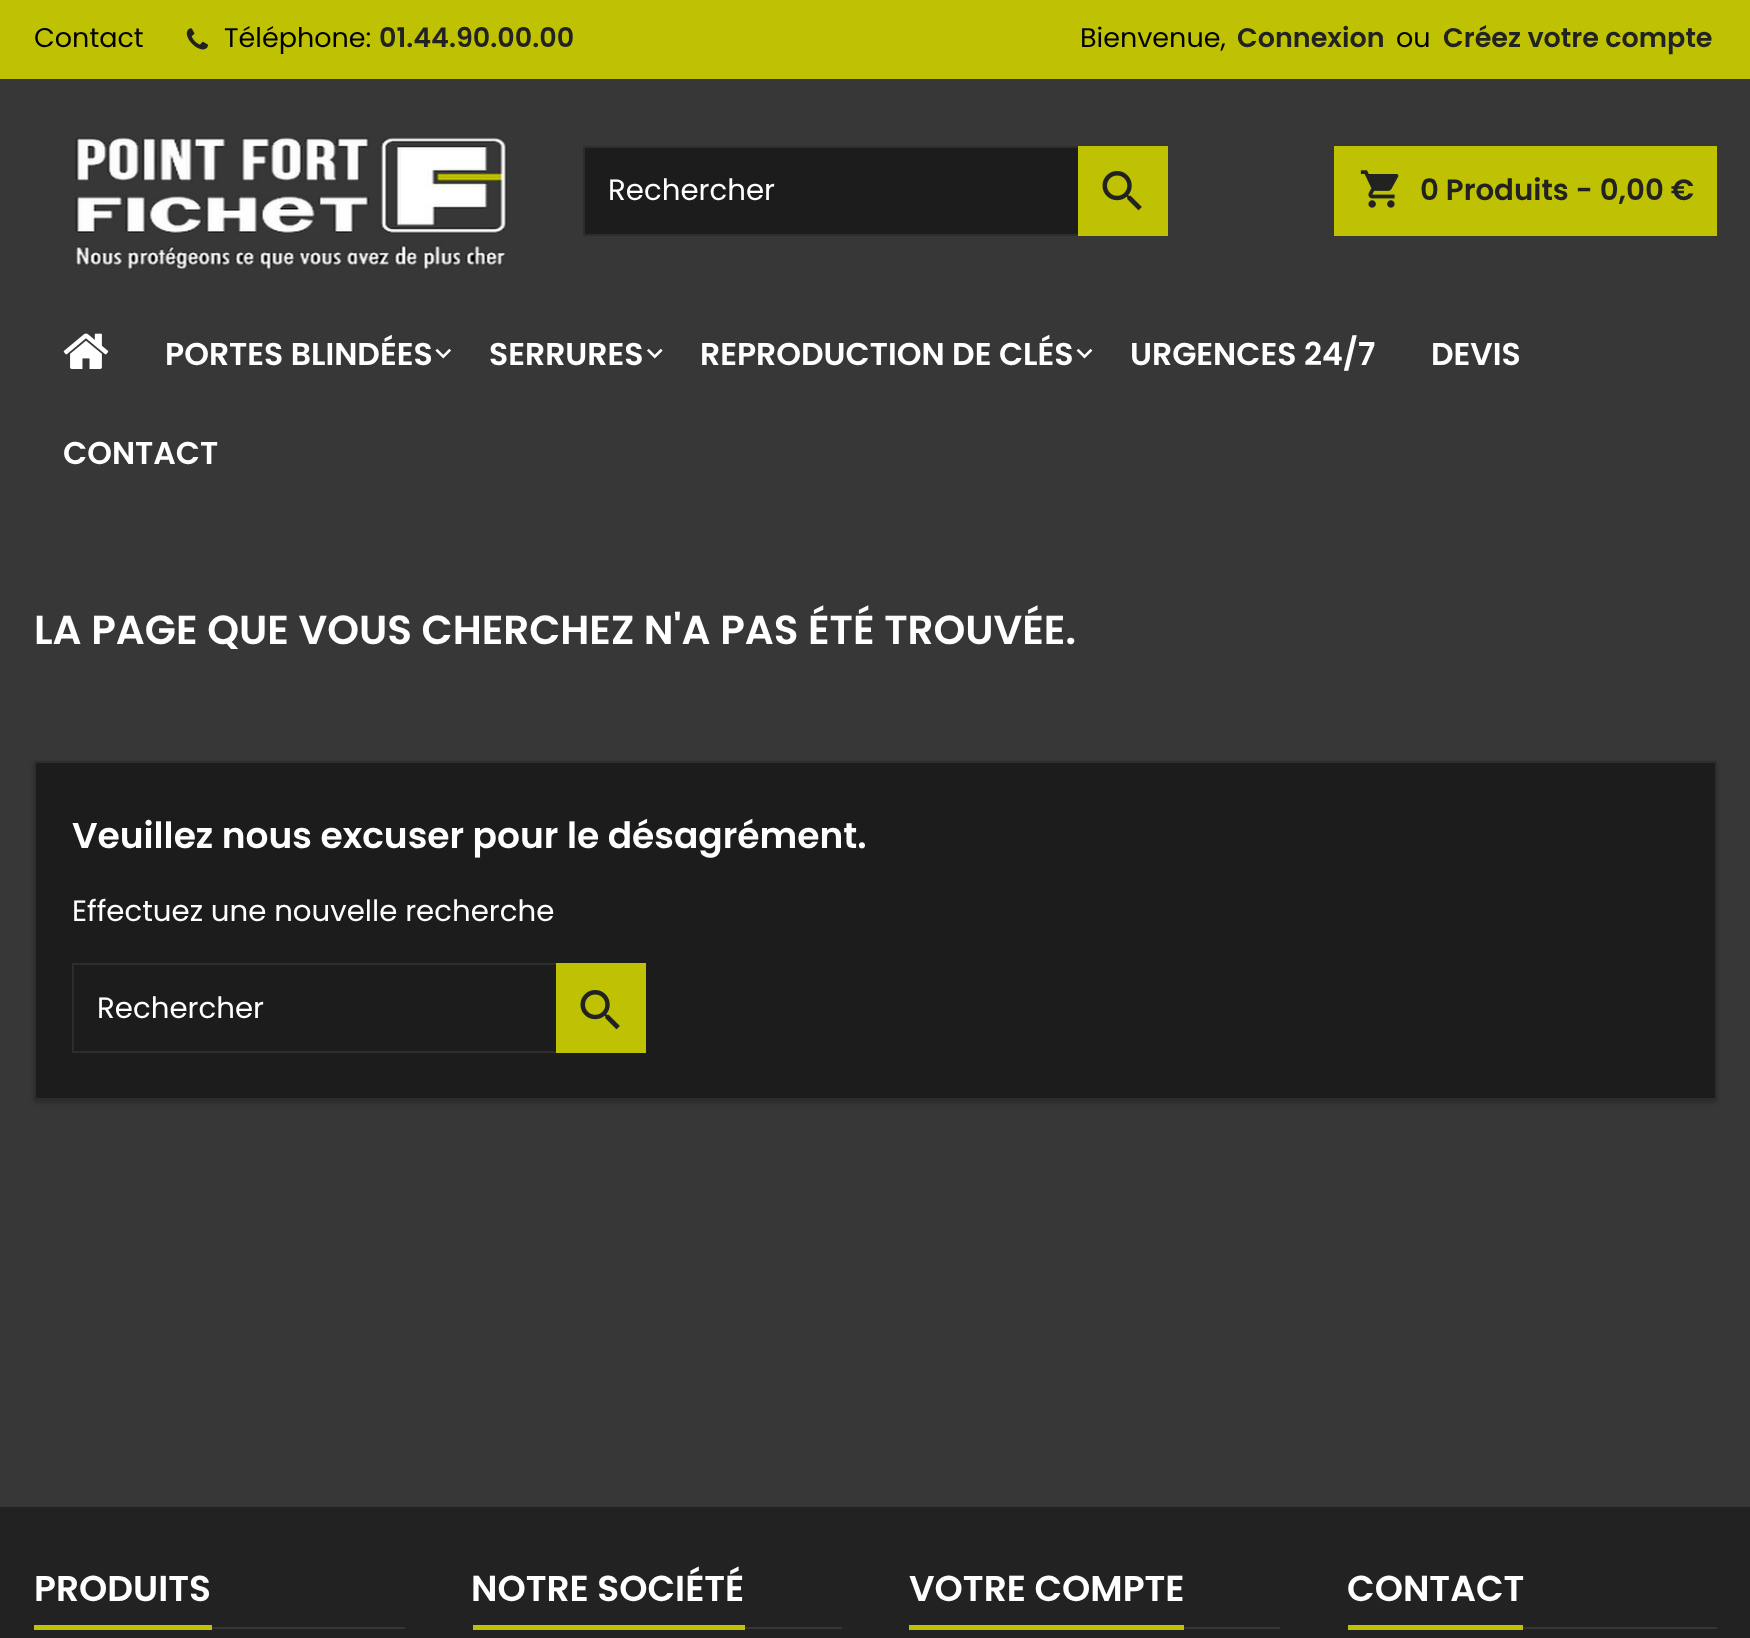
<!DOCTYPE html>
<meta charset="utf-8">
<style>body { margin: 0 } canvas { display: block }</style>
<canvas id="canvas" width="1750" height="1638"></canvas>
<script type="module">
  const canvas = document.getElementById("canvas");
  const ctx = canvas.getContext("2d");
  ctx.miterLimit = 4;
  ctx.fontKerning = "normal";
  async function loadImage(src) {
    const img = new Image();
    img.src = src;
    await img.decode();
    return img;
  }

  ctx.fillStyle = "#383737";
  ctx.fillRect(0, 0, 1750, 1638);
  ctx.fillStyle = "#bfc202";
  ctx.fillRect(0, 0, 1750, 79);
  ctx.font = "27px Poppins";
  ctx.fillStyle = "#000000";
  ctx.fillText("Contact", 34, 47);
  ctx.drawImage(await loadImage("img1.png"), 186, 28, 22, 22);
  ctx.fillText("Téléphone:", 224, 47);
  ctx.font = "600 27px Poppins";
  ctx.fillStyle = "#222222";
  ctx.fillText("01.44.90.00.00", 379, 47);
  ctx.font = "27px Poppins";
  ctx.fillStyle = "#000000";
  ctx.fillText("Bienvenue,", 1080, 47);
  ctx.font = "600 27px Poppins";
  ctx.fillStyle = "#222222";
  ctx.fillText("Connexion", 1237, 47);
  ctx.font = "27px Poppins";
  ctx.fillStyle = "#000000";
  ctx.fillText("ou", 1396, 47);
  ctx.font = "600 27px Poppins";
  ctx.fillStyle = "#222222";
  ctx.fillText("Créez votre compte", 1443, 47);
  ctx.drawImage(await loadImage("img2.png"), 75, 136, 432, 134);
  ctx.fillStyle = "#1c1c1c";
  ctx.fillRect(585, 148, 493, 86);
  ctx.strokeStyle = "#2d2d2d";
  ctx.lineWidth = 2;
  ctx.strokeRect(584, 147, 583, 88);
  ctx.font = "29.25px Poppins";
  ctx.fillStyle = "#ffffff";
  ctx.fillText("Rechercher", 608, 200);
  ctx.fillStyle = "#bfc202";
  ctx.fillRect(1078, 146, 90, 90);
  ctx.drawImage(await loadImage("img3.png"), 1102, 171, 40, 40);
  ctx.fillRect(1334, 146, 383, 90);
  ctx.drawImage(await loadImage("img4.png"), 1360, 170, 39, 38);
  ctx.font = "600 29.25px Poppins";
  ctx.fillStyle = "#222222";
  ctx.fillText("0 Produits - 0,00 €", 1420, 200);
  ctx.drawImage(await loadImage("img5.png"), 63, 333, 46, 36);
  ctx.font = "600 31.5px Poppins";
  ctx.fillStyle = "#ffffff";
  ctx.fillText("PORTES BLINDÉES", 165, 365);
  ctx.drawImage(await loadImage("img6.png"), 435, 348, 16, 11);
  ctx.fillText("SERRURES", 489, 365);
  ctx.drawImage(await loadImage("img7.png"), 647, 348, 16, 11);
  ctx.fillText("REPRODUCTION DE CLÉS", 700, 365);
  ctx.drawImage(await loadImage("img8.png"), 1076, 348, 17, 11);
  ctx.fillText("URGENCES 24/7", 1130, 365);
  ctx.fillText("DEVIS", 1431, 365);
  ctx.fillText("CONTACT", 63, 464);
  ctx.font = "600 40.5px Poppins";
  ctx.fillText("LA PAGE QUE VOUS CHERCHEZ N'A PAS ÉTÉ TROUVÉE.", 34, 644);
  ctx.fillStyle = "rgba(0, 0, 0, 0.2)";
  ctx.filter = "blur(2px)";
  ctx.beginPath();
  ctx.rect(34, 763, 1683, 340);
  ctx.fill();
  ctx.filter = "none";
  ctx.fillStyle = "#1c1c1c";
  ctx.beginPath();
  ctx.rect(35, 762, 1681, 337);
  ctx.fill();
  ctx.stroke();
  ctx.font = "600 36px Poppins";
  ctx.fillStyle = "#ffffff";
  ctx.fillText("Veuillez nous excuser pour le désagrément.", 72, 848);
  ctx.font = "29.25px Poppins";
  ctx.fillText("Effectuez une nouvelle recherche", 72, 921);
  ctx.strokeRect(73, 964, 572, 88);
  ctx.fillText("Rechercher", 97, 1018);
  ctx.fillStyle = "#bfc202";
  ctx.fillRect(556, 963, 90, 90);
  ctx.drawImage(await loadImage("img3.png"), 580, 990, 40, 40);
  ctx.fillStyle = "#222222";
  ctx.fillRect(0, 1507, 1750, 131);
  ctx.fillStyle = "#363636";
  ctx.fillRect(212, 1627, 193, 2);
  ctx.fillStyle = "#bfc202";
  ctx.fillRect(34, 1625, 178, 5);
  ctx.font = "600 36px Poppins";
  ctx.fillStyle = "#ffffff";
  ctx.fillText("PRODUITS", 34, 1601);
  ctx.fillStyle = "#363636";
  ctx.fillRect(745, 1627, 97, 2);
  ctx.fillStyle = "#bfc202";
  ctx.fillRect(473, 1625, 272, 5);
  ctx.fillStyle = "#ffffff";
  ctx.fillText("NOTRE SOCIÉTÉ", 471, 1601);
  ctx.fillStyle = "#363636";
  ctx.fillRect(1184, 1627, 96, 2);
  ctx.fillStyle = "#bfc202";
  ctx.fillRect(909, 1625, 275, 5);
  ctx.fillStyle = "#ffffff";
  ctx.fillText("VOTRE COMPTE", 909, 1601);
  ctx.fillStyle = "#363636";
  ctx.fillRect(1523, 1627, 194, 2);
  ctx.fillStyle = "#bfc202";
  ctx.fillRect(1348, 1625, 175, 5);
  ctx.fillStyle = "#ffffff";
  ctx.fillText("CONTACT", 1347, 1601);
</script>
